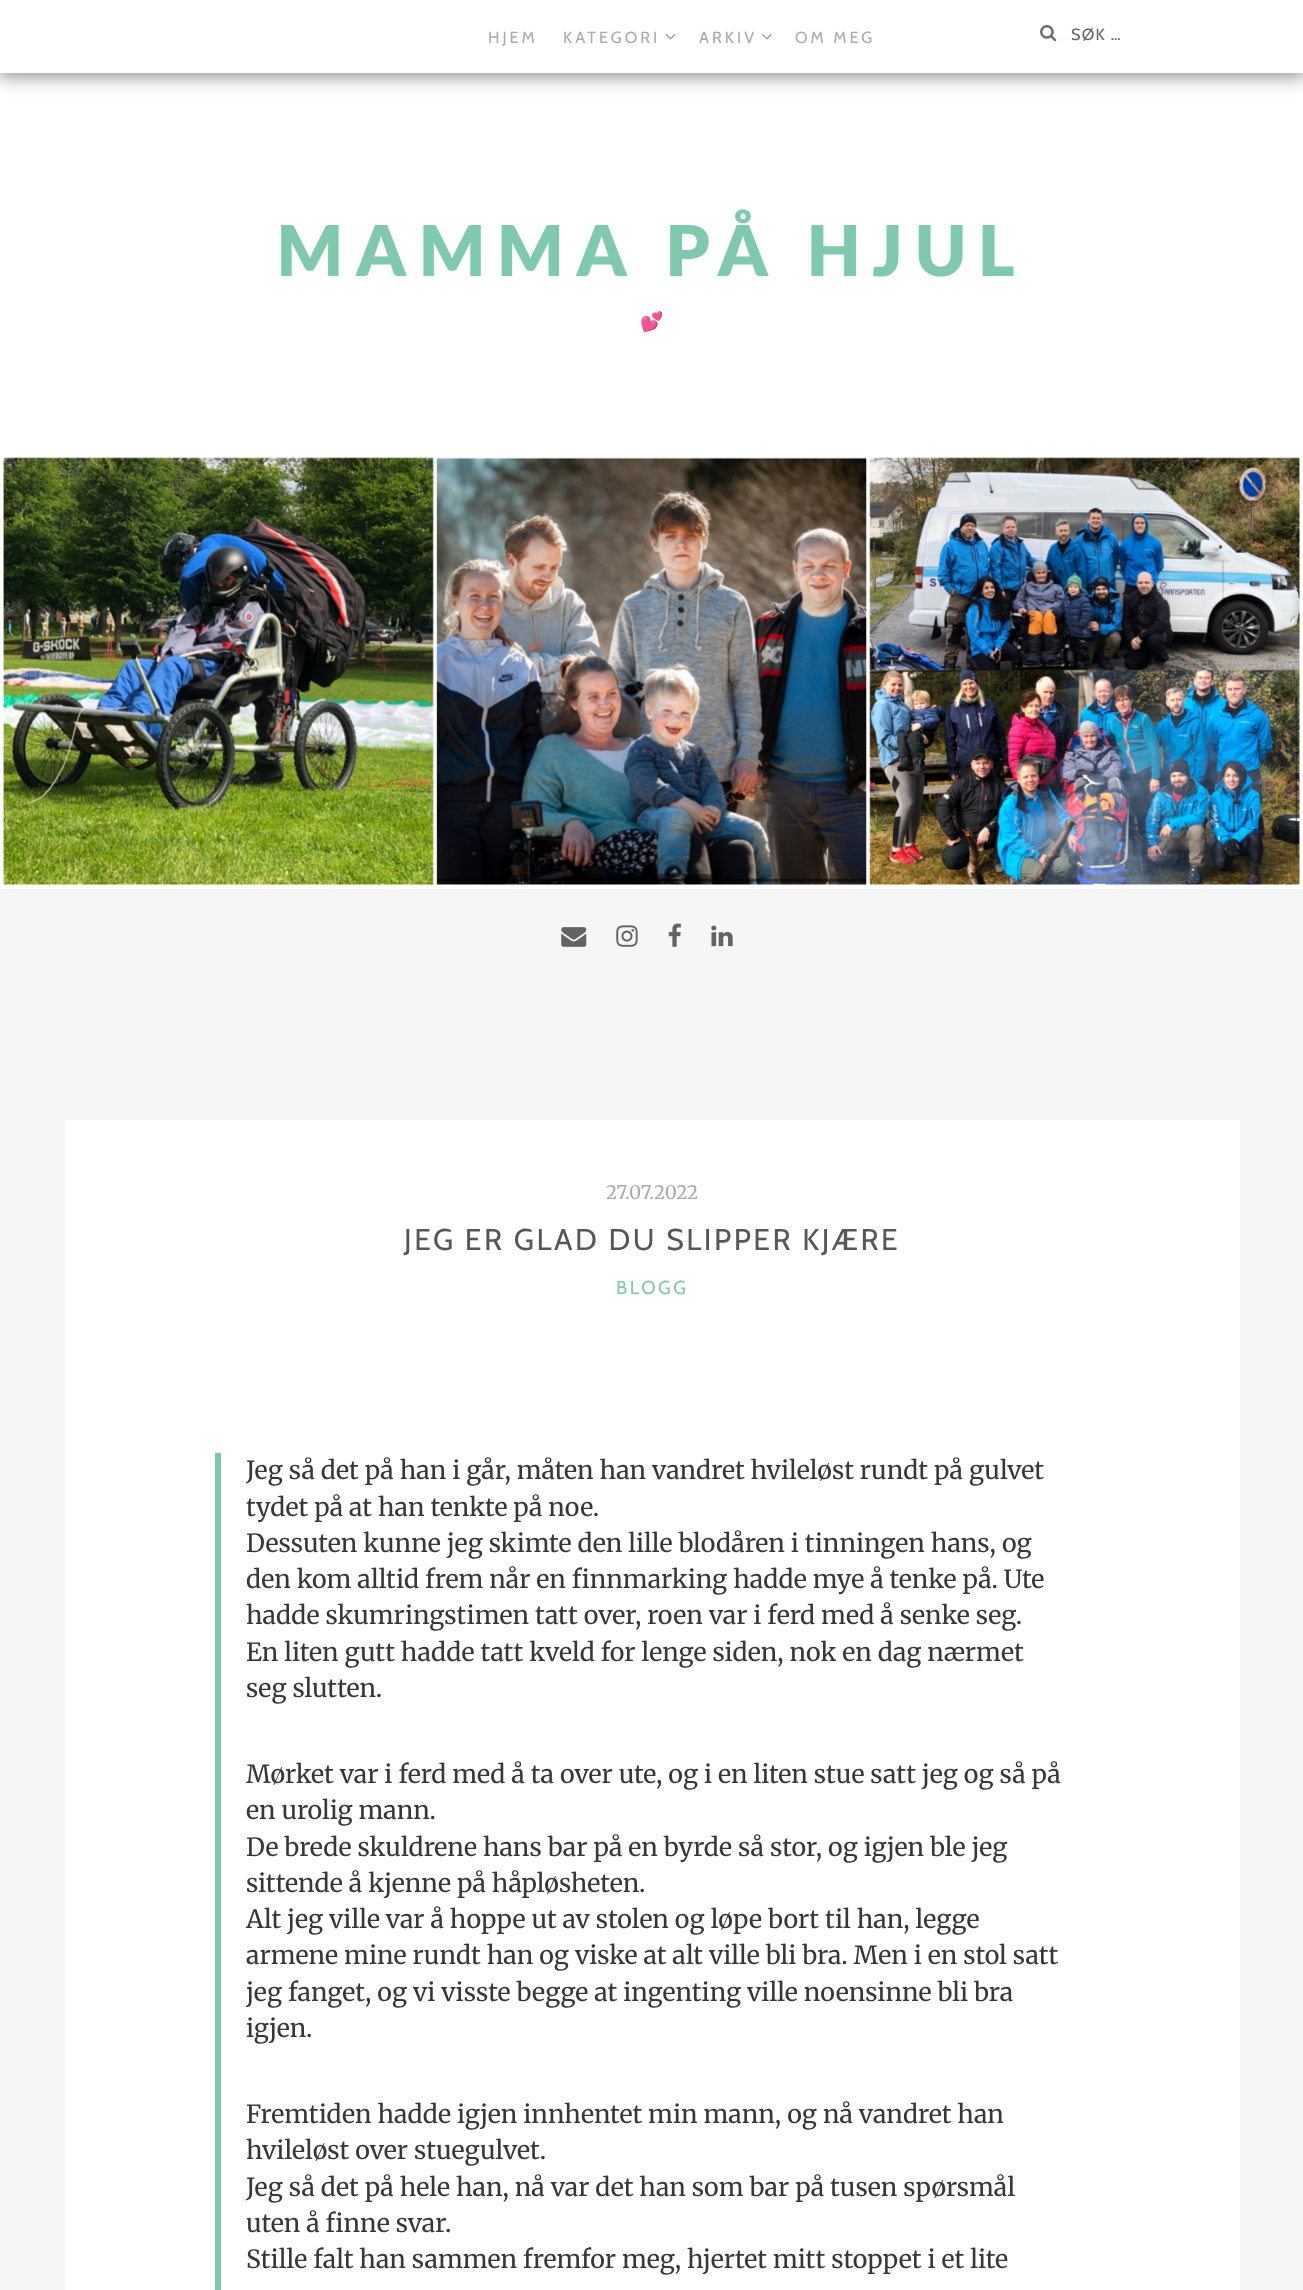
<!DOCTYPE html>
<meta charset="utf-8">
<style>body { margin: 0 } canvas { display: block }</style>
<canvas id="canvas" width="1303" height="2290"></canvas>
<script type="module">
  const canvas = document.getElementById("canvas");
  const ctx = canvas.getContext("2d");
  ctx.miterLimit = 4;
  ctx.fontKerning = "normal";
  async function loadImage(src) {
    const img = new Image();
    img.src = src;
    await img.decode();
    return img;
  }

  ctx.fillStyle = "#f6f6f6";
  ctx.fillRect(0, 0, 1303, 2290);
  ctx.fillStyle = "#ffffff";
  ctx.fillRect(0, 73, 1303, 382);
  ctx.fillStyle = "rgba(0, 0, 0, 0.51)";
  ctx.filter = "blur(10px)";
  ctx.beginPath();
  ctx.rect(-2, -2, 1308, 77);
  ctx.fill();
  ctx.filter = "none";
  ctx.fillStyle = "#ffffff";
  ctx.fillRect(0, 0, 1303, 73);
  ctx.letterSpacing = "3px";
  ctx.font = "16.25px Cabin";
  ctx.fillStyle = "#aaaaaa";
  ctx.fillText("HJEM", 488, 43);
  ctx.fillText("KATEGORI", 563, 43);
  ctx.drawImage(await loadImage("img1.png"), 665, 34, 11, 6);
  ctx.fillText("ARKIV", 699, 43);
  ctx.drawImage(await loadImage("img2.png"), 762, 34, 10, 6);
  ctx.fillText("OM MEG", 795, 43);
  ctx.drawImage(await loadImage("img3.png"), 1040, 25, 17, 17);
  ctx.letterSpacing = "1.25px";
  ctx.fillStyle = "#636363";
  ctx.fillText("SØK …", 1071, 40);
  ctx.letterSpacing = "12.5px";
  ctx.font = "900 70px Lato";
  ctx.fillStyle = "#7fcaad";
  ctx.fillText("MAMMA PÅ HJUL", 277, 276);
  ctx.letterSpacing = "0px";
  ctx.font = "18.75px Noto Color Emoji";
  ctx.fillStyle = "#aaaaaa";
  ctx.fillText("💕", 640, 328);
  ctx.drawImage(await loadImage("img4.png"), 0, 455, 1303, 434);
  ctx.drawImage(await loadImage("img5.png"), 561, 927, 26, 20);
  ctx.drawImage(await loadImage("img6.png"), 616, 925, 22, 22);
  ctx.drawImage(await loadImage("img7.png"), 668, 923, 13, 24);
  ctx.drawImage(await loadImage("img8.png"), 711, 925, 22, 22);
  ctx.fillStyle = "#ffffff";
  ctx.fillRect(65, 1120, 1175, 1170);
  ctx.font = "18.75px Merriweather";
  ctx.fillStyle = "#aaaaaa";
  ctx.fillText("27.07.2022", 606, 1199);
  ctx.letterSpacing = "2.5px";
  ctx.font = "30px Cabin";
  ctx.fillStyle = "#575756";
  ctx.fillText("JEG ER GLAD DU SLIPPER KJÆRE", 404, 1250);
  ctx.font = "18.75px Cabin";
  ctx.fillStyle = "#7fcaad";
  ctx.fillText("BLOGG", 616, 1294);
  ctx.fillRect(215, 1453, 6, 837);
  ctx.letterSpacing = "0px";
  ctx.font = "25px Merriweather";
  ctx.fillStyle = "#373735";
  ctx.fillText("Jeg så det på han i går, måten han vandret hvileløst rundt på gulvet", 246, 1479);
  ctx.fillText("tydet på at han tenkte på noe.", 246, 1516);
  ctx.fillText("Dessuten kunne jeg skimte den lille blodåren i tinningen hans, og", 246, 1552);
  ctx.fillText("den kom alltid frem når en finnmarking hadde mye å tenke på. Ute", 246, 1588);
  ctx.fillText("hadde skumringstimen tatt over, roen var i ferd med å senke seg.", 246, 1624);
  ctx.fillText("En liten gutt hadde tatt kveld for lenge siden, nok en dag nærmet", 246, 1661);
  ctx.fillText("seg slutten.", 246, 1697);
  ctx.fillText("Mørket var i ferd med å ta over ute, og i en liten stue satt jeg og så på", 246, 1783);
  ctx.fillText("en urolig mann.", 246, 1819);
  ctx.fillText("De brede skuldrene hans bar på en byrde så stor, og igjen ble jeg", 246, 1856);
  ctx.fillText("sittende å kjenne på håpløsheten.", 246, 1892);
  ctx.fillText("Alt jeg ville var å hoppe ut av stolen og løpe bort til han, legge", 246, 1928);
  ctx.fillText("armene mine rundt han og viske at alt ville bli bra. Men i en stol satt", 246, 1964);
  ctx.fillText("jeg fanget, og vi visste begge at ingenting ville noensinne bli bra", 246, 2001);
  ctx.fillText("igjen.", 246, 2037);
  ctx.fillText("Fremtiden hadde igjen innhentet min mann, og nå vandret han", 246, 2123);
  ctx.fillText("hvileløst over stuegulvet.", 246, 2159);
  ctx.fillText("Jeg så det på hele han, nå var det han som bar på tusen spørsmål", 246, 2196);
  ctx.fillText("uten å finne svar.", 246, 2232);
  ctx.fillText("Stille falt han sammen fremfor meg, hjertet mitt stoppet i et lite", 246, 2268);
</script>
